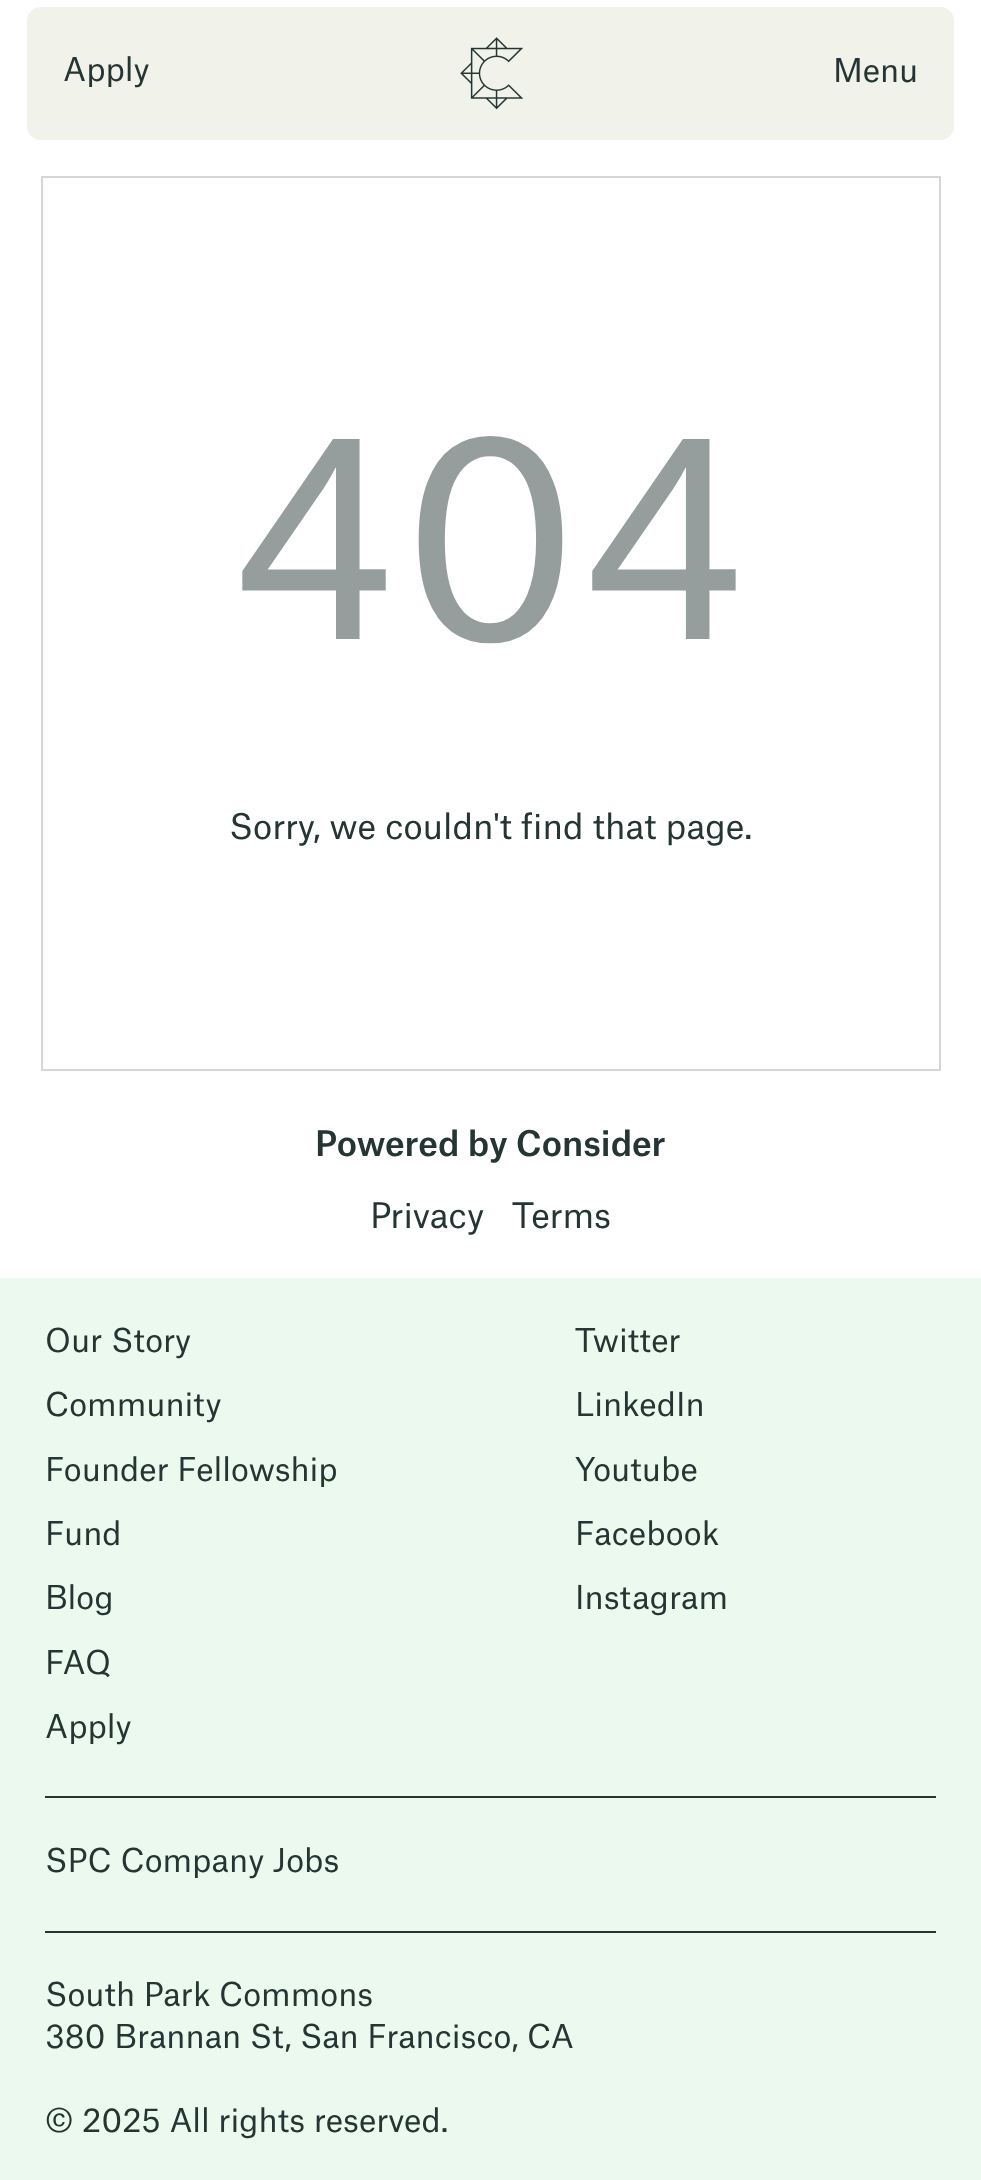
<!DOCTYPE html>
<meta charset="utf-8">
<style>body { margin: 0 } canvas { display: block }</style>
<canvas id="canvas" width="981" height="2180"></canvas>
<script type="module">
  const canvas = document.getElementById("canvas");
  const ctx = canvas.getContext("2d");
  ctx.miterLimit = 4;
  ctx.fontKerning = "normal";
  async function loadImage(src) {
    const img = new Image();
    img.src = src;
    await img.decode();
    return img;
  }

  ctx.fillStyle = "#ffffff";
  ctx.fillRect(0, 0, 981, 2180);
  ctx.fillStyle = "#f1f2ea";
  ctx.beginPath();
  ctx.roundRect(27, 7, 927, 133, 14);
  ctx.fill();
  ctx.font = "31.5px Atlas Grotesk";
  ctx.fillStyle = "#253533";
  ctx.fillText("Apply", 63, 81);
  ctx.drawImage(await loadImage("img1.png"), 460, 37, 64, 73);
  ctx.fillText("Menu", 833, 82);
  ctx.strokeStyle = "#d6d6d6";
  ctx.lineWidth = 2;
  ctx.strokeRect(42, 177, 898, 893);
  ctx.font = "270px Atlas Grotesk";
  ctx.fillStyle = "#969e9d";
  ctx.fillText("404", 231, 639);
  ctx.font = "33.75px Atlas Grotesk";
  ctx.fillStyle = "#253533";
  ctx.fillText("Sorry, we couldn't find that page.", 229, 839);
  ctx.font = "500 33.75px Atlas Grotesk";
  ctx.fillText("Powered by Consider", 315, 1156);
  ctx.font = "33.75px Atlas Grotesk";
  ctx.fillText("Privacy", 370, 1228);
  ctx.fillText("Terms", 512, 1228);
  ctx.fillStyle = "#ecf9ef";
  ctx.fillRect(0, 1278, 981, 902);
  ctx.font = "31.5px Atlas Grotesk";
  ctx.fillStyle = "#253533";
  ctx.fillText("Our Story", 45, 1352);
  ctx.fillText("Community", 45, 1416);
  ctx.fillText("Founder Fellowship", 45, 1481);
  ctx.fillText("Fund", 45, 1545);
  ctx.fillText("Blog", 45, 1609);
  ctx.fillText("FAQ", 45, 1674);
  ctx.fillText("Apply", 45, 1738);
  ctx.fillText("Twitter", 575, 1352);
  ctx.fillText("LinkedIn", 575, 1416);
  ctx.fillText("Youtube", 575, 1481);
  ctx.fillText("Facebook", 575, 1545);
  ctx.fillText("Instagram", 575, 1609);
  ctx.fillRect(45, 1796, 891, 2);
  ctx.fillRect(45, 1931, 891, 2);
  ctx.fillText("SPC Company Jobs", 45, 1872);
  ctx.fillText("South Park Commons", 45, 2006);
  ctx.fillText("380 Brannan St, San Francisco, CA", 45, 2048);
  ctx.fillText("© 2025 All rights reserved.", 45, 2132);
</script>
